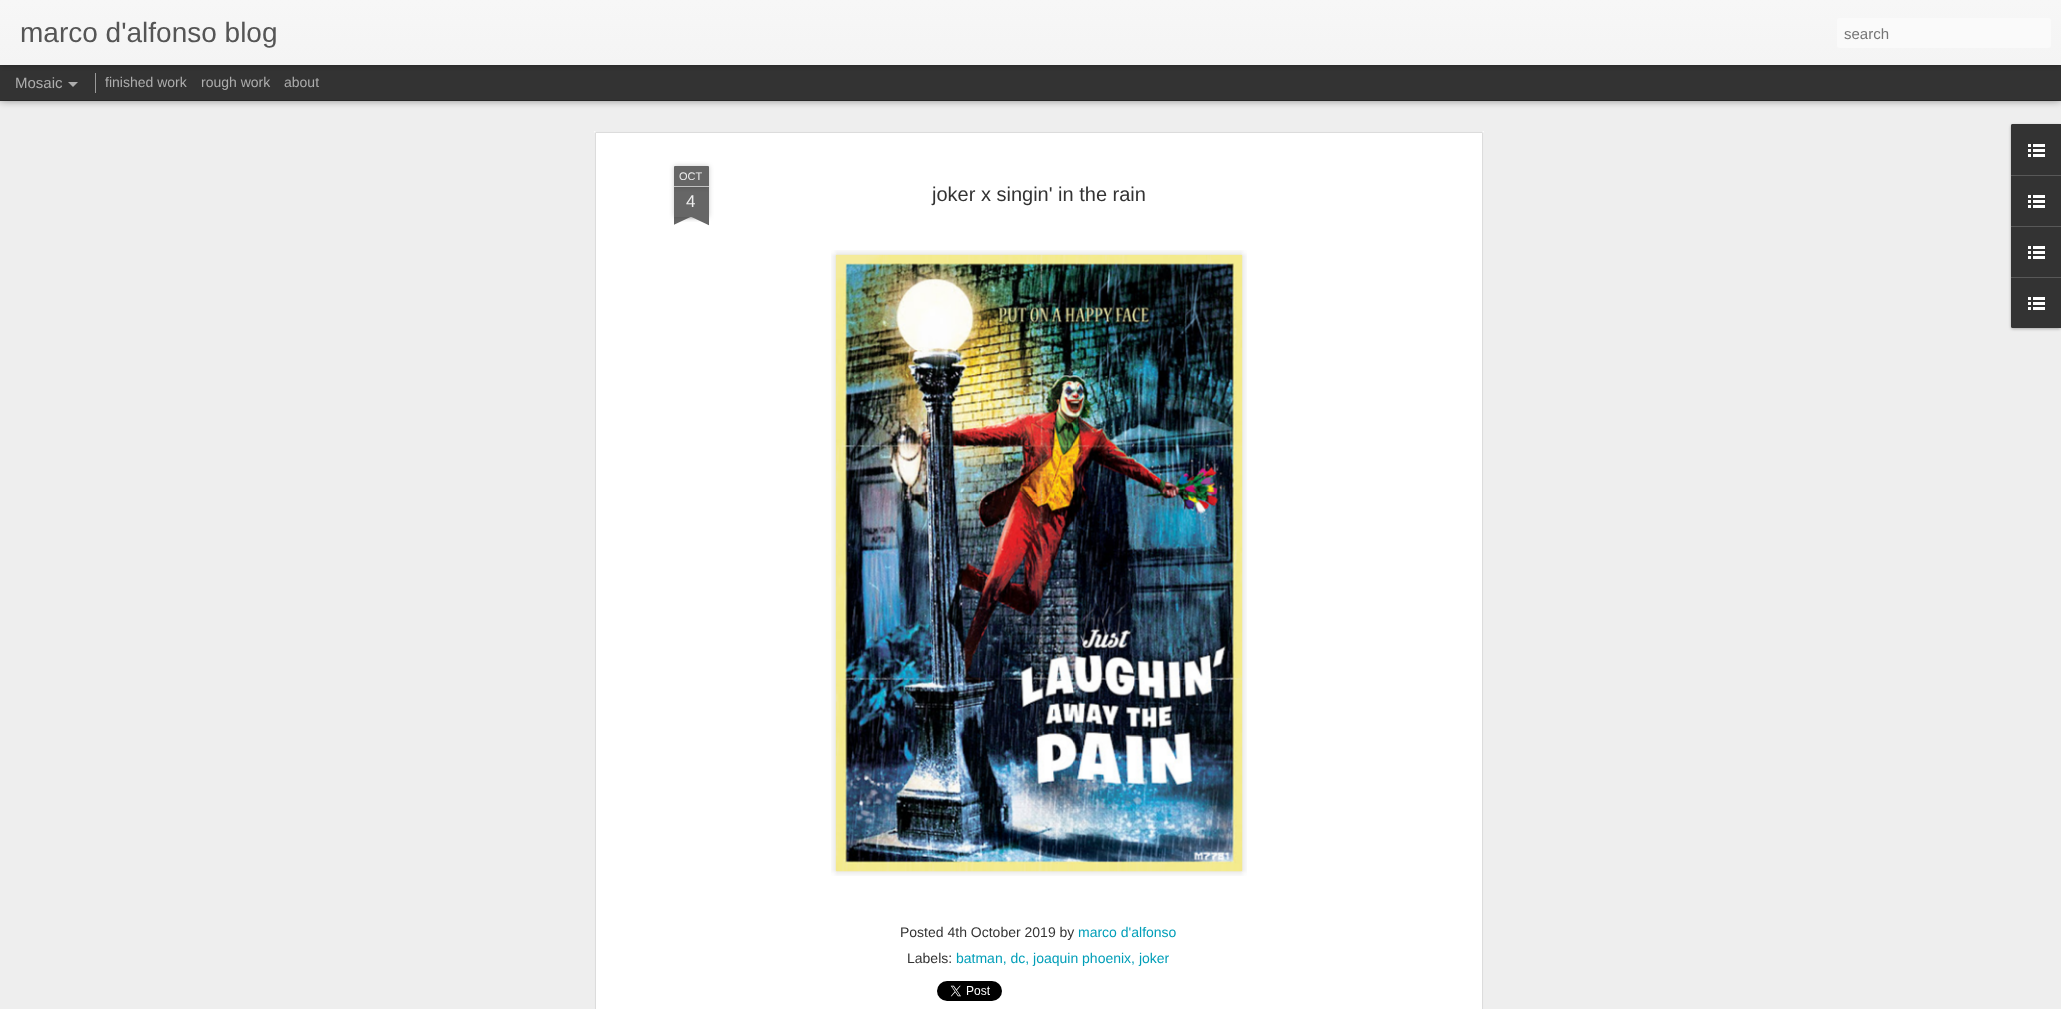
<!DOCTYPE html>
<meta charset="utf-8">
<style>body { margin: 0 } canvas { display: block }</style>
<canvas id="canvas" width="2061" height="1009"></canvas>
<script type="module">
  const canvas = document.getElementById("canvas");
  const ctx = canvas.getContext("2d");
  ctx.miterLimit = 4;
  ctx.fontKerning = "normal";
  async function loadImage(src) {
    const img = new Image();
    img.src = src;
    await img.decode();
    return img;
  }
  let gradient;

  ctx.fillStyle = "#333333";
  ctx.fillRect(0, 0, 2061, 1009);
  ctx.fillStyle = "#eeeeee";
  ctx.fillRect(0, 101, 2061, 908);
  ctx.fillStyle = "rgba(0, 0, 0, 0.5)";
  ctx.filter = "blur(4px)";
  ctx.beginPath();
  ctx.rect(0, 65, 2061, 35);
  ctx.fill();
  ctx.filter = "none";
  ctx.fillStyle = "#333333";
  ctx.fillRect(0, 65, 2061, 35);
  ctx.fillStyle = "#999999";
  ctx.fillRect(95, 73, 1, 20);
  ctx.fillStyle = "rgba(0, 0, 0, 0.3)";
  ctx.filter = "blur(2.5px)";
  ctx.beginPath();
  ctx.rect(0, 0, 2061, 65);
  ctx.fill();
  ctx.filter = "none";
  gradient = ctx.createLinearGradient(0, 0, 0, 65);
  gradient.addColorStop(0, "#f7f7f7");
  gradient.addColorStop(1, "#f4f4f4");
  ctx.fillStyle = gradient;
  ctx.fillRect(0, 0, 2061, 65);
  ctx.font = "28px Liberation Sans";
  ctx.fillStyle = "#555555";
  ctx.fillText("marco d'alfonso blog", 20, 42);
  ctx.fillStyle = "#fafafa";
  ctx.beginPath();
  ctx.roundRect(1837, 18, 214, 30, 3);
  ctx.fill();
  ctx.font = "15px Liberation Sans";
  ctx.fillStyle = "#757575";
  ctx.fillText("search", 1844, 39);
  ctx.fillStyle = "#adadad";
  ctx.fillText("Mosaic", 15, 88);
  ctx.beginPath();
  ctx.moveTo(68, 82);
  ctx.lineTo(78, 82);
  ctx.lineTo(73, 87);
  ctx.closePath();
  ctx.fill();
  ctx.font = "14px Liberation Sans";
  ctx.fillText("finished work", 105, 87);
  ctx.fillText("rough work", 201, 87);
  ctx.fillText("about", 284, 87);
  ctx.fillStyle = "#ffffff";
  ctx.fillRect(594, 131, 890, 878);
  ctx.drawImage(await loadImage("img1.png"), 594, 131, 890, 878);
  ctx.fillStyle = "rgba(0, 0, 0, 0.2)";
  ctx.filter = "blur(2.5px)";
  ctx.beginPath();
  ctx.rect(674, 187, 35, 30);
  ctx.fill();
  ctx.filter = "none";
  ctx.fillStyle = "#666666";
  ctx.fillRect(674, 187, 35, 30);
  ctx.fillStyle = "rgba(0, 0, 0, 0.2)";
  ctx.filter = "blur(2.5px)";
  ctx.beginPath();
  ctx.roundRect(674, 166, 35, 21, 1);
  ctx.fill();
  ctx.filter = "none";
  ctx.fillStyle = "#666666";
  ctx.beginPath();
  ctx.roundRect(674, 166, 35, 21, [1, 1, 0, 0]);
  ctx.fill();
  ctx.fillStyle = "#c2c2c2";
  ctx.fillRect(674, 186, 35, 1);
  ctx.font = "11px Liberation Sans";
  ctx.fillStyle = "#eeeeee";
  ctx.fillText("OCT", 679, 180);
  ctx.font = "17px Liberation Sans";
  ctx.fillText("4", 686, 207);
  ctx.save();
  ctx.beginPath();
  ctx.rect(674, 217, 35, 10);
  ctx.clip();
  ctx.fillStyle = "rgba(0, 0, 0, 0.2)";
  ctx.filter = "blur(2.5px)";
  ctx.beginPath();
  ctx.rect(665, 207, 50, 10);
  ctx.fill();
  ctx.filter = "none";
  ctx.restore();
  ctx.save();
  ctx.beginPath();
  ctx.rect(674, 217, 35, 10);
  ctx.clip();
  ctx.fillStyle = "#666666";
  ctx.beginPath();
  ctx.moveTo(665, 218);
  ctx.lineTo(710, 197);
  ctx.lineTo(714, 206);
  ctx.lineTo(669, 227);
  ctx.closePath();
  ctx.fill();
  ctx.restore();
  ctx.save();
  ctx.beginPath();
  ctx.rect(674, 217, 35, 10);
  ctx.clip();
  ctx.fillStyle = "rgba(0, 0, 0, 0.2)";
  ctx.filter = "blur(2.5px)";
  ctx.beginPath();
  ctx.rect(668, 207, 50, 10);
  ctx.fill();
  ctx.filter = "none";
  ctx.restore();
  ctx.save();
  ctx.beginPath();
  ctx.rect(674, 217, 35, 10);
  ctx.clip();
  ctx.fillStyle = "#666666";
  ctx.beginPath();
  ctx.moveTo(672, 197);
  ctx.lineTo(717, 218);
  ctx.lineTo(713, 227);
  ctx.lineTo(668, 206);
  ctx.closePath();
  ctx.fill();
  ctx.restore();
  ctx.font = "20px Liberation Sans";
  ctx.fillStyle = "#333333";
  ctx.fillText("joker x singin' in the rain", 932, 201);
  ctx.drawImage(await loadImage("img2.png"), 831, 250, 416, 626);
  ctx.drawImage(await loadImage("img3.png"), 835, 254, 408, 618);
  ctx.font = "14px Liberation Sans";
  ctx.fillText("Posted 4th October 2019 by", 900, 937);
  ctx.fillStyle = "#009eb8";
  ctx.fillText("marco d'alfonso", 1078, 937);
  ctx.fillStyle = "#333333";
  ctx.fillText("Labels:", 907, 963);
  ctx.fillStyle = "#009eb8";
  ctx.fillText("batman, dc, joaquin phoenix, joker", 956, 963);
  ctx.drawImage(await loadImage("img4.png"), 937, 981, 65, 20);
  ctx.fillStyle = "rgba(0, 0, 0, 0.3)";
  ctx.filter = "blur(1.5px)";
  ctx.beginPath();
  ctx.roundRect(2011, 125, 50, 204, 2);
  ctx.fill();
  ctx.filter = "none";
  ctx.fillStyle = "#333333";
  ctx.beginPath();
  ctx.roundRect(2011, 124, 50, 204, [2, 0, 0, 2]);
  ctx.fill();
  ctx.beginPath();
  ctx.roundRect(2011, 124, 50, 51, [2, 0, 0, 0]);
  ctx.fill();
  ctx.drawImage(await loadImage("img5.png"), 2028, 144, 17, 13);
  ctx.fillStyle = "#585858";
  ctx.fillRect(2011, 175, 50, 1);
  ctx.drawImage(await loadImage("img5.png"), 2028, 195, 17, 13);
  ctx.fillRect(2011, 226, 50, 1);
  ctx.drawImage(await loadImage("img5.png"), 2028, 246, 17, 13);
  ctx.fillStyle = "#333333";
  ctx.beginPath();
  ctx.roundRect(2011, 277, 50, 51, [0, 0, 0, 2]);
  ctx.fill();
  ctx.fillStyle = "#585858";
  ctx.fillRect(2011, 277, 50, 1);
  ctx.drawImage(await loadImage("img5.png"), 2028, 297, 17, 13);
</script>
